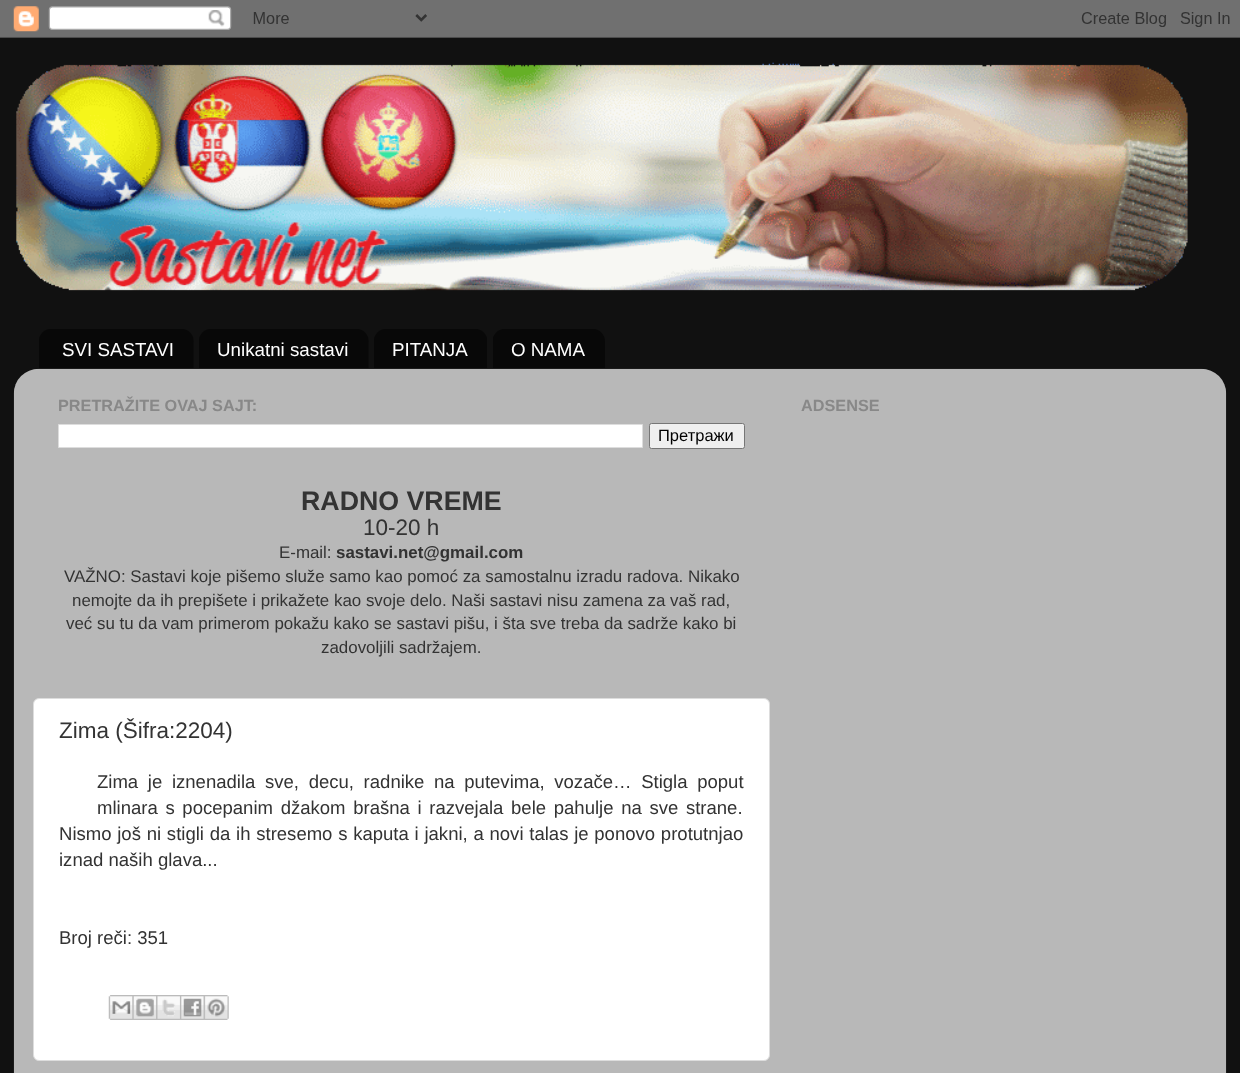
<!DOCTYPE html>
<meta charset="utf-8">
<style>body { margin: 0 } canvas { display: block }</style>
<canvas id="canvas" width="1240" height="1073"></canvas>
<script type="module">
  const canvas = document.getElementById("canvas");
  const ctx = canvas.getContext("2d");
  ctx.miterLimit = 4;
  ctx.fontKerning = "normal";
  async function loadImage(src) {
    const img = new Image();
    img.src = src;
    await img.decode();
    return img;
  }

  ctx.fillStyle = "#111111";
  ctx.fillRect(0, 0, 1240, 1073);
  ctx.drawImage(await loadImage("img1.png"), 0, 0, 1240, 38);
  ctx.drawImage(await loadImage("img2.png"), 16, 62, 1172, 229);
  ctx.drawImage(await loadImage("img3.png"), 39, 329, 155, 39);
  ctx.font = "18.75px Liberation Sans";
  ctx.fillStyle = "#ffffff";
  ctx.fillText("SVI SASTAVI", 62, 356);
  ctx.drawImage(await loadImage("img4.png"), 199, 329, 170, 39);
  ctx.fillText("Unikatni sastavi", 217, 356);
  ctx.drawImage(await loadImage("img5.png"), 374, 329, 113, 39);
  ctx.fillText("PITANJA", 392, 356);
  ctx.drawImage(await loadImage("img6.png"), 493, 329, 112, 39);
  ctx.fillText("O NAMA", 511, 356);
  ctx.drawImage(await loadImage("img7.png"), 13, 368, 1214, 705);
  ctx.font = "bold 16.25px Liberation Sans";
  ctx.fillStyle = "#888888";
  ctx.fillText("PRETRAŽITE OVAJ SAJT:", 58, 411);
  ctx.fillStyle = "#ffffff";
  ctx.beginPath();
  ctx.rect(58.5, 424.5, 584, 23);
  ctx.fill();
  ctx.strokeStyle = "#dddddd";
  ctx.stroke();
  ctx.fillStyle = "#efefef";
  ctx.beginPath();
  ctx.roundRect(649.5, 423.5, 95, 25, 2);
  ctx.fill();
  ctx.strokeStyle = "#767676";
  ctx.stroke();
  ctx.font = "16.5px Liberation Sans";
  ctx.fillStyle = "#000000";
  ctx.fillText("Претражи", 658, 441);
  ctx.font = "bold 26.75px Liberation Sans";
  ctx.fillStyle = "#333333";
  ctx.fillText("RADNO VREME", 301, 510);
  ctx.font = "22.5px Liberation Sans";
  ctx.fillText("10-20 h", 363, 535);
  ctx.font = "16.9px Liberation Sans";
  ctx.fillText("E-mail:", 279, 558);
  ctx.font = "bold 16.9px Liberation Sans";
  ctx.fillText("sastavi.net@gmail.com", 336, 558);
  ctx.font = "16.9px Liberation Sans";
  ctx.fillText("VAŽNO: Sastavi koje pišemo služe samo kao pomoć za samostalnu izradu radova. Nikako", 64, 582);
  ctx.fillText("nemojte da ih prepišete i prikažete kao svoje delo. Naši sastavi nisu zamena za vaš rad,", 72, 606);
  ctx.fillText("već su tu da vam primerom pokažu kako se sastavi pišu, i šta sve treba da sadrže kako bi", 66, 629);
  ctx.fillText("zadovoljili sadržajem.", 321, 653);
  ctx.fillStyle = "#ffffff";
  ctx.beginPath();
  ctx.roundRect(33.5, 698.5, 736, 362, 5.5);
  ctx.fill();
  ctx.strokeStyle = "#dddddd";
  ctx.stroke();
  ctx.font = "22.5px Liberation Sans";
  ctx.fillStyle = "#333333";
  ctx.fillText("Zima (Šifra:2204)", 59, 738);
  ctx.wordSpacing = "4.5px";
  ctx.font = "18.55px Liberation Sans";
  ctx.fillText("Zima je iznenadila sve, decu, radnike na putevima, vozače… Stigla poput", 97, 788);
  ctx.wordSpacing = "2.5px";
  ctx.fillText("mlinara s pocepanim džakom brašna i razvejala bele pahulje na sve strane.", 97, 814);
  ctx.wordSpacing = "0.6px";
  ctx.fillText("Nismo još ni stigli da ih stresemo s kaputa i jakni, a novi talas je ponovo protutnjao", 59, 840);
  ctx.wordSpacing = "0px";
  ctx.fillText("iznad naših glava...", 59, 866);
  ctx.fillText("Broj reči: 351", 59, 944);
  ctx.drawImage(await loadImage("img8.png"), 108, 995, 25, 25);
  ctx.drawImage(await loadImage("img9.png"), 132, 995, 25, 25);
  ctx.drawImage(await loadImage("img10.png"), 156, 995, 24, 25);
  ctx.drawImage(await loadImage("img11.png"), 180, 995, 24, 25);
  ctx.drawImage(await loadImage("img12.png"), 203, 995, 26, 25);
  ctx.font = "bold 16.25px Liberation Sans";
  ctx.fillStyle = "#888888";
  ctx.fillText("ADSENSE", 801, 411);
</script>
